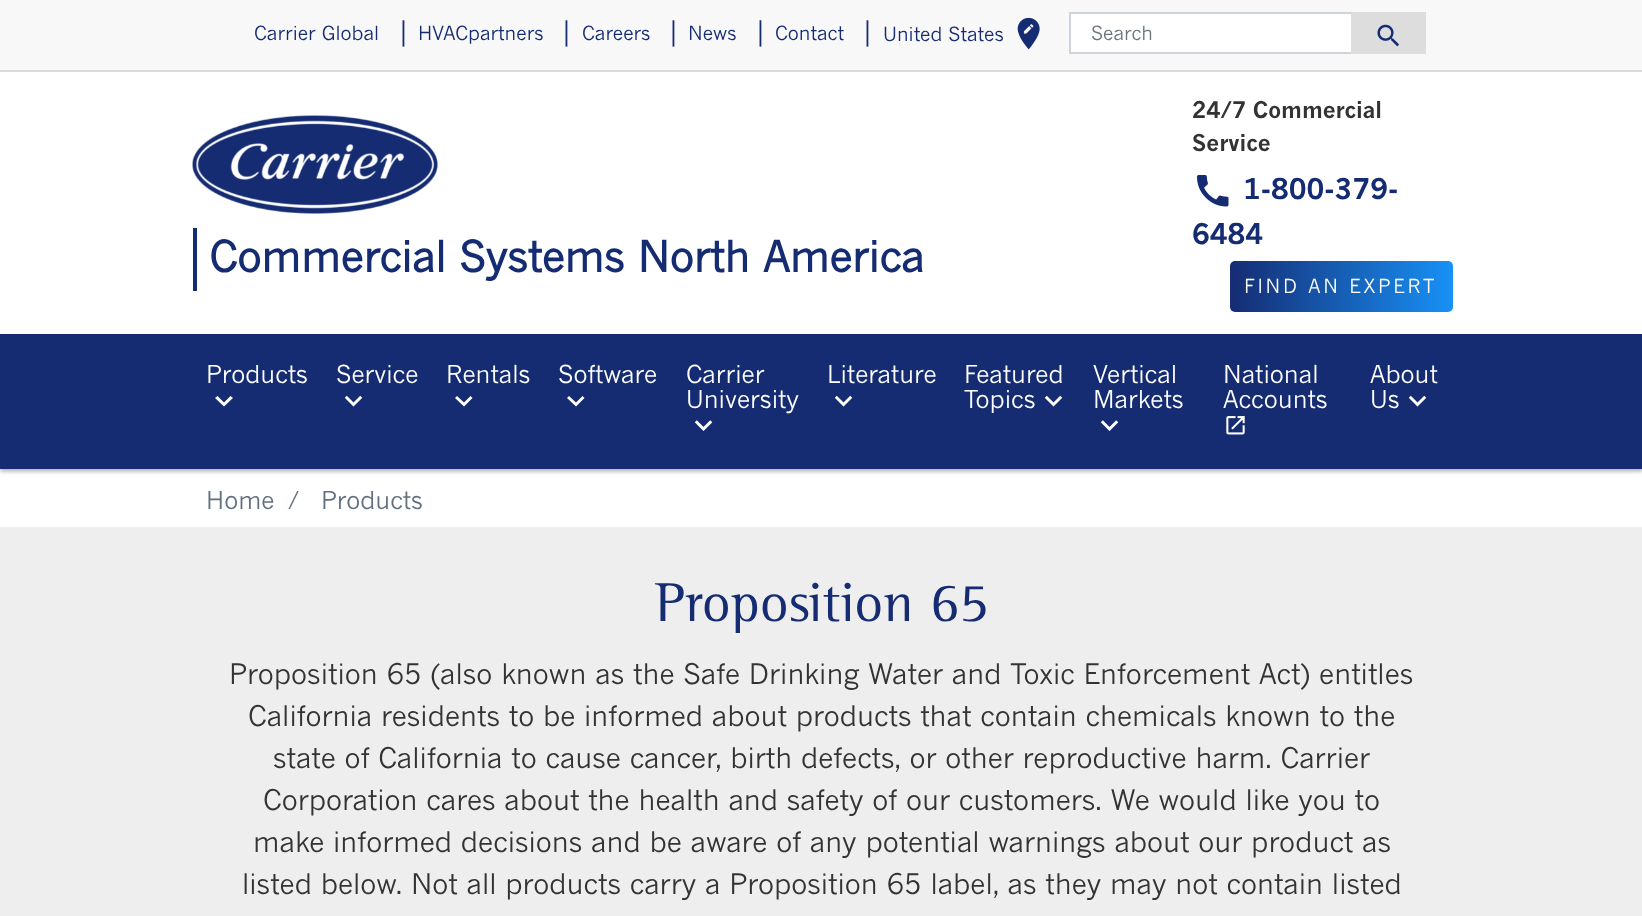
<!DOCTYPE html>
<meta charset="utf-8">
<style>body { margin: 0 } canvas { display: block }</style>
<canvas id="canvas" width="1642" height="916"></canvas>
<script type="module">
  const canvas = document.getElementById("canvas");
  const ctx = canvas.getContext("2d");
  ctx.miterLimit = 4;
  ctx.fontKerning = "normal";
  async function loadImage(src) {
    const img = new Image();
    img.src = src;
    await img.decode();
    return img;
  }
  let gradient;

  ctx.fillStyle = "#eeeeee";
  ctx.fillRect(0, 0, 1642, 916);
  ctx.fillStyle = "#ffffff";
  ctx.fillRect(0, 469, 1642, 58);
  ctx.fillStyle = "rgba(0, 0, 0, 0.12)";
  ctx.filter = "blur(2.5px)";
  ctx.beginPath();
  ctx.rect(0, 2, 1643, 469);
  ctx.fill();
  ctx.filter = "none";
  ctx.fillStyle = "rgba(0, 0, 0, 0.24)";
  ctx.filter = "blur(2px)";
  ctx.beginPath();
  ctx.rect(0, 2, 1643, 469);
  ctx.fill();
  ctx.filter = "none";
  ctx.fillStyle = "#ffffff";
  ctx.fillRect(0, 72, 1642, 262);
  ctx.fillStyle = "#f8f8f8";
  ctx.fillRect(0, 0, 1642, 70);
  ctx.fillStyle = "#dadada";
  ctx.fillRect(0, 70, 1642, 2);
  ctx.font = "19.25px 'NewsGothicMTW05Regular'";
  ctx.fillStyle = "#152c73";
  ctx.fillText("Carrier Global", 254, 40);
  ctx.font = "28px 'NewsGothicMTW05Regular'";
  ctx.fillText("|", 396, 41);
  ctx.font = "19.25px 'NewsGothicMTW05Regular'";
  ctx.fillText("HVACpartners", 418, 40);
  ctx.font = "28px 'NewsGothicMTW05Regular'";
  ctx.fillText("|", 559, 41);
  ctx.font = "19.25px 'NewsGothicMTW05Regular'";
  ctx.fillText("Careers", 582, 40);
  ctx.font = "28px 'NewsGothicMTW05Regular'";
  ctx.fillText("|", 666, 41);
  ctx.font = "19.25px 'NewsGothicMTW05Regular'";
  ctx.fillText("News", 688, 40);
  ctx.font = "28px 'NewsGothicMTW05Regular'";
  ctx.fillText("|", 753, 41);
  ctx.font = "19.25px 'NewsGothicMTW05Regular'";
  ctx.fillText("Contact", 775, 40);
  ctx.font = "28px 'NewsGothicMTW05Regular'";
  ctx.fillText("|", 860, 41);
  ctx.font = "19.25px 'NewsGothicMTW05Regular'";
  ctx.fillText("United States", 883, 41);
  ctx.drawImage(await loadImage("img1.png"), 1017, 17, 23, 33);
  ctx.fillStyle = "#ffffff";
  ctx.beginPath();
  ctx.rect(1070, 13, 282, 40);
  ctx.fill();
  ctx.strokeStyle = "#ced4da";
  ctx.lineWidth = 2;
  ctx.stroke();
  ctx.fillStyle = "#6c757d";
  ctx.fillText("Search", 1091, 40);
  ctx.fillStyle = "#dddddd";
  ctx.fillRect(1351, 12, 75, 42);
  ctx.drawImage(await loadImage("img2.png"), 1377, 24, 22, 23);
  ctx.drawImage(await loadImage("img3.png"), 192, 115, 246, 99);
  ctx.fillStyle = "#152c73";
  ctx.fillRect(193, 228, 4, 63);
  ctx.font = "bold 42px 'NewsGothicMTW05Regular'";
  ctx.fillText("Commercial Systems North America", 209, 272);
  ctx.font = "bold 22.5px 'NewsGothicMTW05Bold'";
  ctx.fillStyle = "#333333";
  ctx.fillText("24/7 Commercial", 1192, 118);
  ctx.fillText("Service", 1192, 151);
  ctx.drawImage(await loadImage("img4.png"), 1197, 175, 32, 32);
  ctx.font = "bold 28px 'NewsGothicMTW05Bold'";
  ctx.fillStyle = "#152c73";
  ctx.fillText("1-800-379-", 1243, 199);
  ctx.fillText("6484", 1192, 244);
  gradient = ctx.createLinearGradient(1453, 286, 1230, 286);
  gradient.addColorStop(0, "#1891f6");
  gradient.addColorStop(1, "#152c73");
  ctx.fillStyle = gradient;
  ctx.beginPath();
  ctx.roundRect(1230, 261, 223, 51, 5);
  ctx.fill();
  ctx.letterSpacing = "2.75px";
  ctx.font = "19.25px 'NewsGothicMTW05Regular'";
  ctx.fillStyle = "#ffffff";
  ctx.fillText("FIND AN EXPERT", 1244, 293);
  ctx.fillStyle = "#152c73";
  ctx.fillRect(0, 334, 1642, 135);
  ctx.letterSpacing = "0px";
  ctx.font = "24.5px 'NewsGothicMTW05Regular'";
  ctx.fillStyle = "#ffffff";
  ctx.fillText("Products", 206, 383);
  ctx.beginPath();
  ctx.moveTo(230.5, 396);
  ctx.lineTo(233, 398);
  ctx.lineTo(224, 406.5);
  ctx.lineTo(215, 398);
  ctx.lineTo(217.5, 396);
  ctx.lineTo(224, 402.5);
  ctx.closePath();
  ctx.fill();
  ctx.fillText("Service", 336, 383);
  ctx.drawImage(await loadImage("img5.png"), 344, 395, 19, 12);
  ctx.fillText("Rentals", 446, 383);
  ctx.beginPath();
  ctx.moveTo(470.5, 396);
  ctx.lineTo(472.5, 398);
  ctx.lineTo(464, 406.5);
  ctx.lineTo(455, 398);
  ctx.lineTo(457, 396);
  ctx.lineTo(464, 402.5);
  ctx.closePath();
  ctx.fill();
  ctx.fillText("Software", 558, 383);
  ctx.beginPath();
  ctx.moveTo(582.5, 396);
  ctx.lineTo(584.5, 398);
  ctx.lineTo(576, 406.5);
  ctx.lineTo(567, 398);
  ctx.lineTo(569, 396);
  ctx.lineTo(576, 402.5);
  ctx.closePath();
  ctx.fill();
  ctx.fillText("Carrier", 686, 383);
  ctx.fillText("University", 686, 408);
  ctx.drawImage(await loadImage("img6.png"), 694, 420, 19, 11);
  ctx.fillText("Literature", 827, 383);
  ctx.drawImage(await loadImage("img5.png"), 834, 395, 19, 12);
  ctx.fillText("Featured", 964, 383);
  ctx.fillText("Topics", 964, 408);
  ctx.drawImage(await loadImage("img5.png"), 1044, 395, 19, 12);
  ctx.fillText("Vertical", 1093, 383);
  ctx.fillText("Markets", 1093, 408);
  ctx.drawImage(await loadImage("img6.png"), 1100, 420, 19, 11);
  ctx.fillText("National", 1223, 383);
  ctx.fillText("Accounts", 1223, 408);
  ctx.drawImage(await loadImage("img7.png"), 1226, 416, 19, 19);
  ctx.fillText("About", 1370, 383);
  ctx.fillText("Us", 1370, 408);
  ctx.drawImage(await loadImage("img5.png"), 1408, 395, 19, 12);
  ctx.fillStyle = "#617080";
  ctx.fillText("Home", 206, 509);
  ctx.fillStyle = "#6c757d";
  ctx.fillText("/", 288, 509);
  ctx.fillStyle = "#617080";
  ctx.fillText("Products", 321, 509);
  ctx.font = "56px 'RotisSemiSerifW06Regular'";
  ctx.fillStyle = "#152c73";
  ctx.fillText("Proposition 65", 655, 621);
  ctx.font = "28px 'NewsGothicMTW05Regular'";
  ctx.fillStyle = "#333333";
  ctx.fillText("Proposition 65 (also known as the Safe Drinking Water and Toxic Enforcement Act) entitles", 229, 684);
  ctx.fillText("California residents to be informed about products that contain chemicals known to the", 248, 726);
  ctx.fillText("state of California to cause cancer, birth defects, or other reproductive harm. Carrier", 273, 768);
  ctx.fillText("Corporation cares about the health and safety of our customers. We would like you to", 263, 810);
  ctx.fillText("make informed decisions and be aware of any potential warnings about our product as", 253, 852);
  ctx.fillText("listed below. Not all products carry a Proposition 65 label, as they may not contain listed", 242, 894);
</script>
